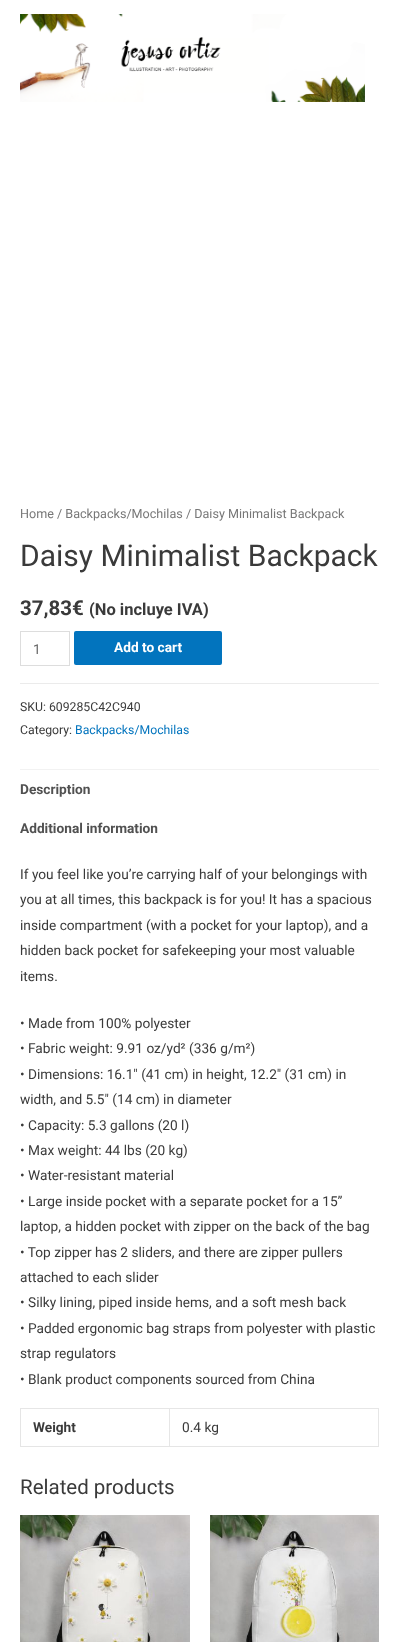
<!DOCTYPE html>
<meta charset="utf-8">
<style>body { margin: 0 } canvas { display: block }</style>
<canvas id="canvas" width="399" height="1642"></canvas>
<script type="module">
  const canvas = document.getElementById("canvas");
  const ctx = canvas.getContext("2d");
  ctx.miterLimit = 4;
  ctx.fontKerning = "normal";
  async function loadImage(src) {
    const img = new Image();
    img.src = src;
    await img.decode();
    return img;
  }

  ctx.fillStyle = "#ffffff";
  ctx.fillRect(0, 0, 399, 1642);
  ctx.drawImage(await loadImage("img1.png"), 20, 14, 345, 88);
  ctx.font = "12.6px Roboto";
  ctx.fillStyle = "#777777";
  ctx.fillText("Home / Backpacks/Mochilas / Daisy Minimalist Backpack", 20, 518);
  ctx.font = "30px Roboto";
  ctx.fillStyle = "#3a3a3a";
  ctx.fillText("Daisy Minimalist Backpack", 20, 566);
  ctx.font = "bold 20.5px Roboto";
  ctx.fillText("37,83€", 20, 615);
  ctx.font = "bold 16.5px Roboto";
  ctx.fillText("(No incluye IVA)", 89, 615);
  ctx.strokeStyle = "#dddddd";
  ctx.strokeRect(20.5, 631.5, 49, 34);
  ctx.font = "13.7px Roboto";
  ctx.fillStyle = "#666666";
  ctx.fillText("1", 33, 654);
  ctx.fillStyle = "#0274be";
  ctx.beginPath();
  ctx.roundRect(74, 631, 148, 34, 2);
  ctx.fill();
  ctx.font = "bold 13.7px Roboto";
  ctx.fillStyle = "#ffffff";
  ctx.fillText("Add to cart", 114, 652);
  ctx.fillStyle = "#ebebeb";
  ctx.fillRect(20, 683, 359, 1);
  ctx.font = "12.25px Roboto";
  ctx.fillStyle = "#3a3a3a";
  ctx.fillText("SKU: 609285C42C940", 20, 711);
  ctx.fillText("Category:", 20, 734);
  ctx.fillStyle = "#0274be";
  ctx.fillText("Backpacks/Mochilas", 75, 734);
  ctx.fillStyle = "#f2f2f2";
  ctx.fillRect(20, 769, 359, 1);
  ctx.font = "bold 13.7px Roboto";
  ctx.fillStyle = "#515151";
  ctx.fillText("Description", 20, 794);
  ctx.fillText("Additional information", 20, 833);
  ctx.font = "13.7px Roboto";
  ctx.fillStyle = "#3a3a3a";
  ctx.fillText("If you feel like you’re carrying half of your belongings with", 20, 879);
  ctx.fillText("you at all times, this backpack is for you! It has a spacious", 20, 904);
  ctx.fillText("inside compartment (with a pocket for your laptop), and a", 20, 930);
  ctx.fillText("hidden back pocket for safekeeping your most valuable", 20, 955);
  ctx.fillText("items.", 20, 981);
  ctx.fillText("• Made from 100% polyester", 20, 1028);
  ctx.fillText("• Fabric weight: 9.91 oz/yd² (336 g/m²)", 20, 1053);
  ctx.fillText("• Dimensions: 16.1″ (41 cm) in height, 12.2″ (31 cm) in", 20, 1079);
  ctx.fillText("width, and 5.5″ (14 cm) in diameter", 20, 1104);
  ctx.fillText("• Capacity: 5.3 gallons (20 l)", 20, 1130);
  ctx.fillText("• Max weight: 44 lbs (20 kg)", 20, 1155);
  ctx.fillText("• Water-resistant material", 20, 1180);
  ctx.fillText("• Large inside pocket with a separate pocket for a 15”", 20, 1206);
  ctx.fillText("laptop, a hidden pocket with zipper on the back of the bag", 20, 1231);
  ctx.fillText("• Top zipper has 2 sliders, and there are zipper pullers", 20, 1257);
  ctx.fillText("attached to each slider", 20, 1282);
  ctx.fillText("• Silky lining, piped inside hems, and a soft mesh back", 20, 1307);
  ctx.fillText("• Padded ergonomic bag straps from polyester with plastic", 20, 1333);
  ctx.fillText("strap regulators", 20, 1358);
  ctx.fillText("• Blank product components sourced from China", 20, 1384);
  ctx.fillStyle = "#e6e6e6";
  ctx.fillRect(20, 1408, 359, 1);
  ctx.beginPath();
  ctx.moveTo(170, 1409);
  ctx.lineTo(170, 1447);
  ctx.lineTo(169, 1446);
  ctx.lineTo(169, 1409);
  ctx.closePath();
  ctx.fill();
  ctx.fillStyle = "rgba(0, 0, 0, 0.1)";
  ctx.beginPath();
  ctx.moveTo(170, 1447);
  ctx.lineTo(20, 1447);
  ctx.lineTo(21, 1446);
  ctx.lineTo(169, 1446);
  ctx.closePath();
  ctx.fill();
  ctx.beginPath();
  ctx.moveTo(20, 1447);
  ctx.lineTo(20, 1409);
  ctx.lineTo(21, 1409);
  ctx.lineTo(21, 1446);
  ctx.closePath();
  ctx.fill();
  ctx.font = "bold 13.7px Roboto";
  ctx.fillStyle = "#3a3a3a";
  ctx.fillText("Weight", 33, 1432);
  ctx.fillStyle = "#e6e6e6";
  ctx.beginPath();
  ctx.moveTo(379, 1409);
  ctx.lineTo(379, 1447);
  ctx.lineTo(378, 1446);
  ctx.lineTo(378, 1409);
  ctx.closePath();
  ctx.fill();
  ctx.fillStyle = "rgba(0, 0, 0, 0.1)";
  ctx.beginPath();
  ctx.moveTo(379, 1447);
  ctx.lineTo(170, 1447);
  ctx.lineTo(170, 1446);
  ctx.lineTo(378, 1446);
  ctx.closePath();
  ctx.fill();
  ctx.font = "13.7px Roboto";
  ctx.fillStyle = "#3a3a3a";
  ctx.fillText("0.4 kg", 182, 1432);
  ctx.font = "20.5px Roboto";
  ctx.fillText("Related products", 20, 1494);
  ctx.drawImage(await loadImage("img2.png"), 20, 1515, 170, 127);
  ctx.drawImage(await loadImage("img3.png"), 210, 1515, 169, 127);
</script>
